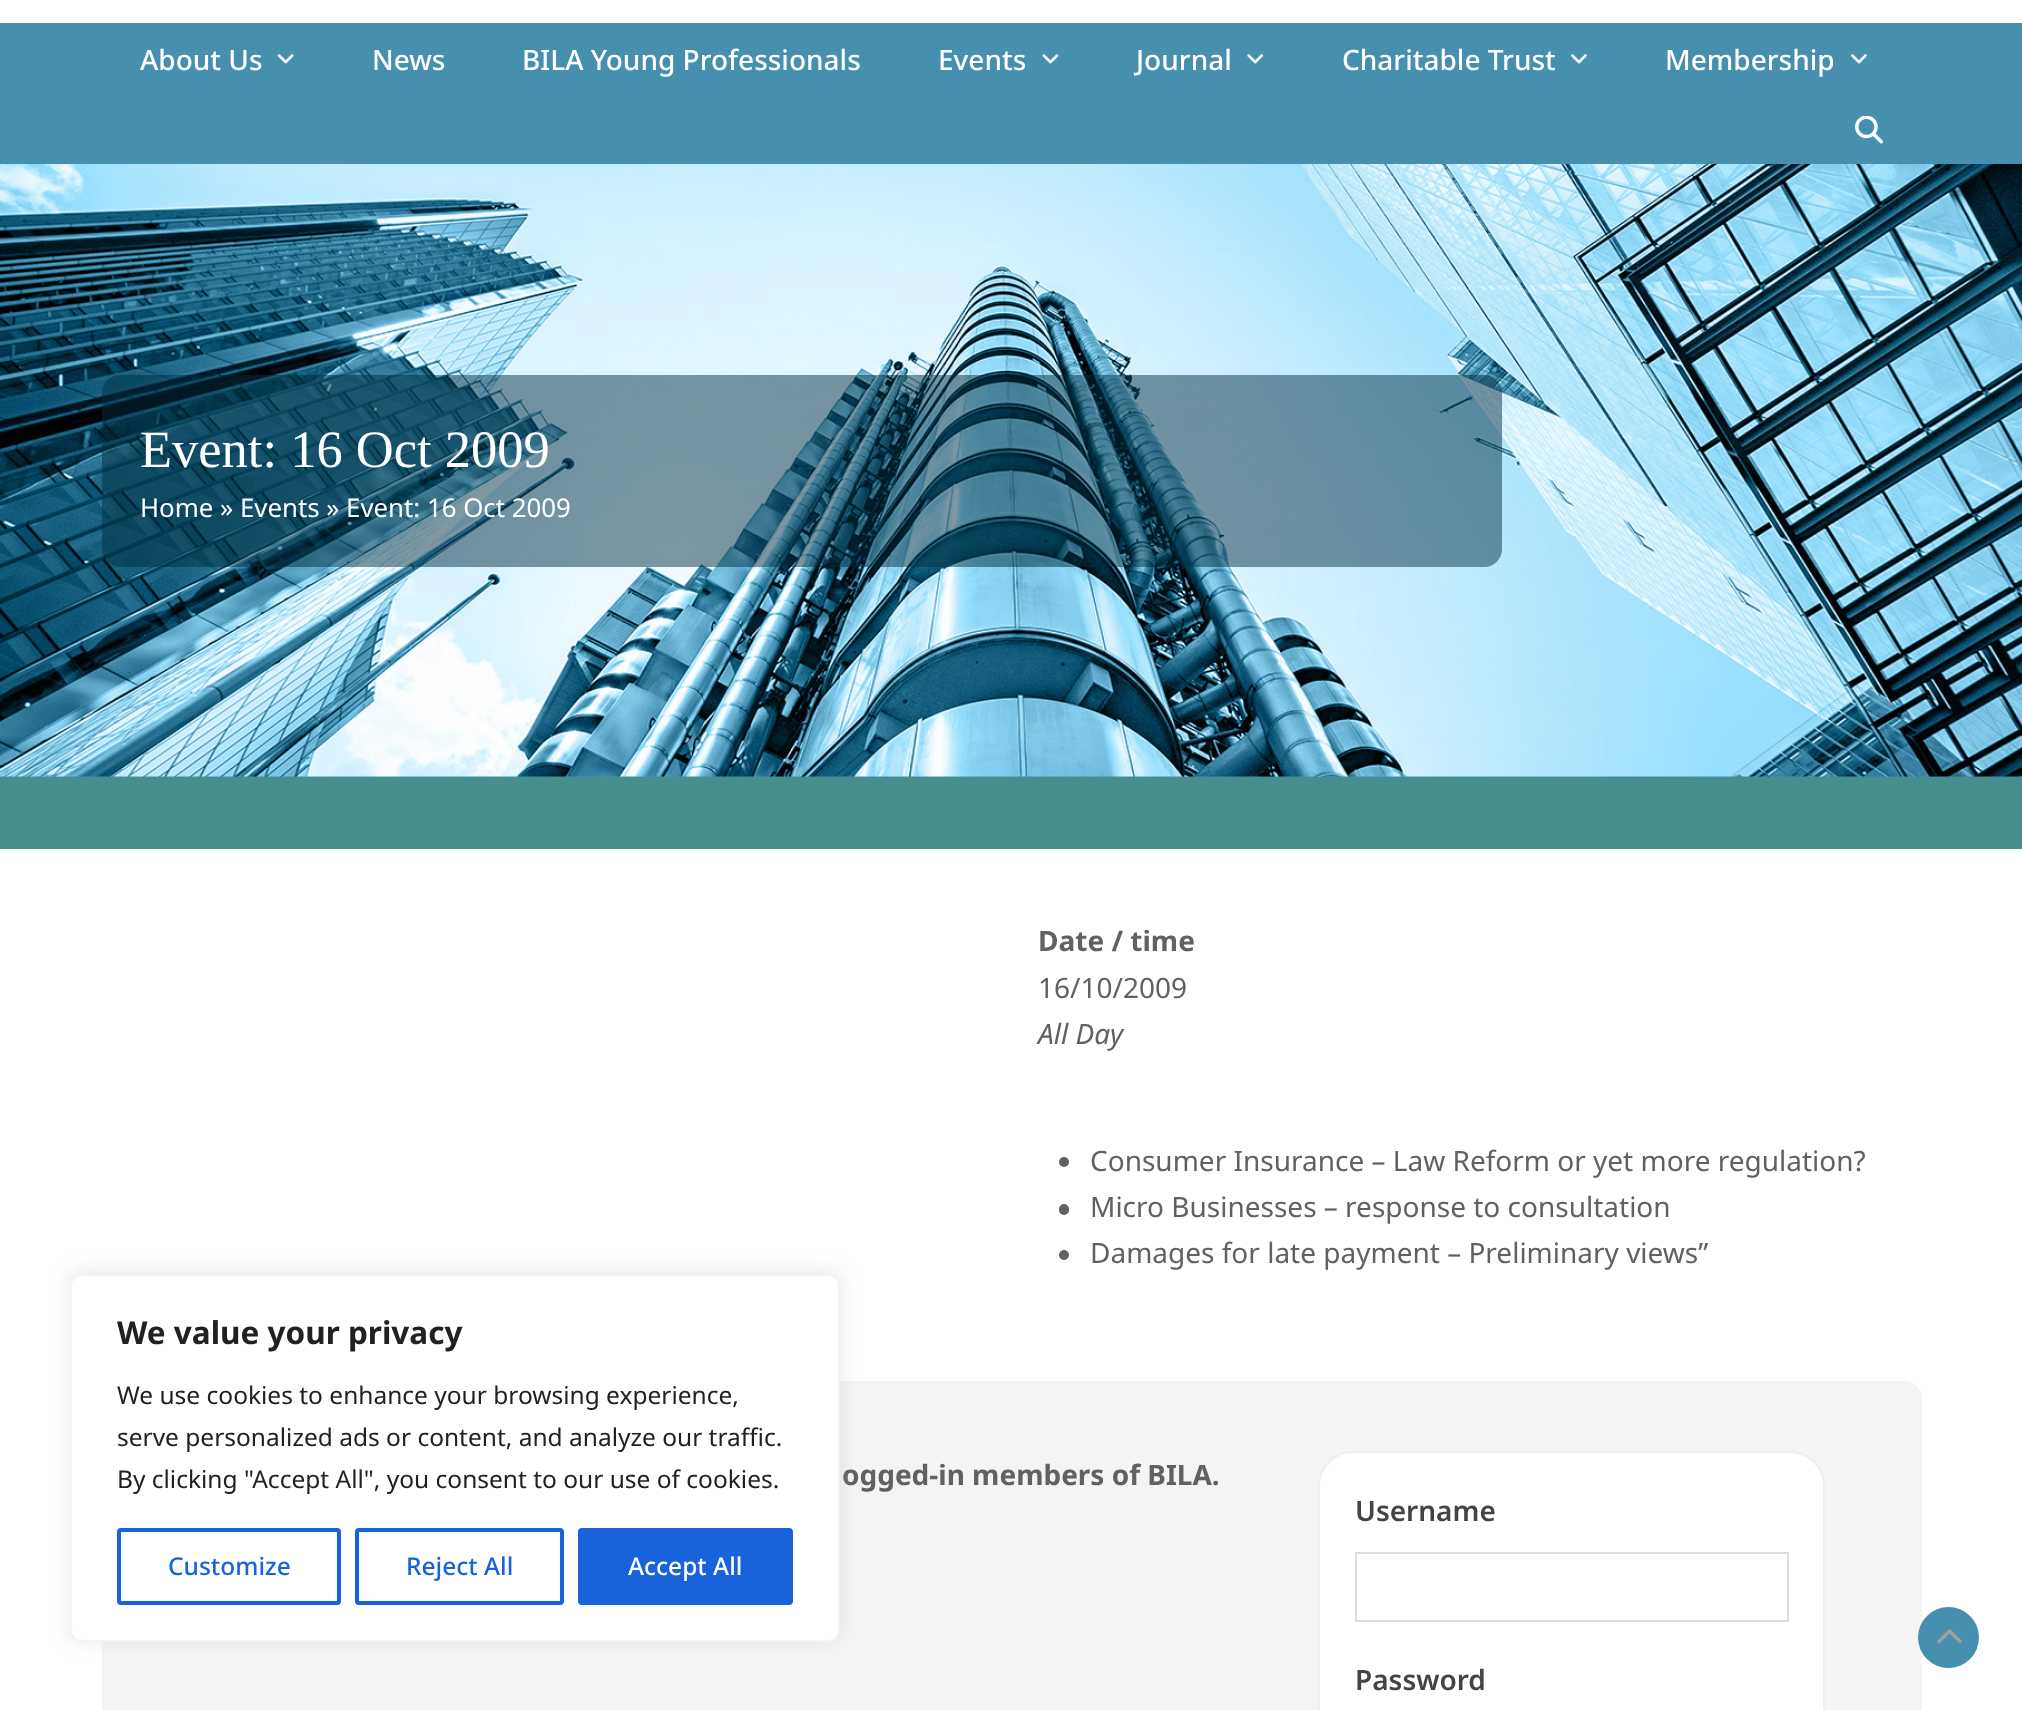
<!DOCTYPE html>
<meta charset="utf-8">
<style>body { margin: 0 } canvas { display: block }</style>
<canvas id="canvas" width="2022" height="1710"></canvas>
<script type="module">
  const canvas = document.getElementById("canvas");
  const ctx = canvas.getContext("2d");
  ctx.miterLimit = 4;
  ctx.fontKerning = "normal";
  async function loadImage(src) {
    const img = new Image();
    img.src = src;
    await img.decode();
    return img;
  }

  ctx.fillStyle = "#ffffff";
  ctx.fillRect(0, 0, 2022, 1710);
  ctx.fillStyle = "#468faf";
  ctx.fillRect(0, 23, 2022, 141);
  ctx.font = "500 28px Noto Sans";
  ctx.fillStyle = "#ffffff";
  ctx.fillText("About Us", 140, 70);
  ctx.drawImage(await loadImage("img1.png"), 277, 54, 17, 10);
  ctx.fillText("News", 372, 70);
  ctx.fillText("BILA Young Professionals", 522, 70);
  ctx.fillText("Events", 938, 70);
  ctx.drawImage(await loadImage("img2.png"), 1042, 54, 17, 10);
  ctx.fillText("Journal", 1136, 70);
  ctx.drawImage(await loadImage("img3.png"), 1247, 54, 16, 10);
  ctx.fillText("Charitable Trust", 1342, 70);
  ctx.drawImage(await loadImage("img4.png"), 1571, 54, 16, 10);
  ctx.fillText("Membership", 1665, 70);
  ctx.drawImage(await loadImage("img4.png"), 1851, 54, 16, 10);
  ctx.drawImage(await loadImage("img5.png"), 1855, 116, 28, 28);
  ctx.fillStyle = "#468faf";
  ctx.fillRect(0, 776, 2022, 1);
  ctx.drawImage(await loadImage("img6.png"), 0, 164, 2022, 613);
  ctx.fillStyle = "rgba(0, 44, 63, 0.49)";
  ctx.beginPath();
  ctx.roundRect(102, 375, 1400, 192, 18);
  ctx.fill();
  ctx.font = "52.5px Liberation Serif";
  ctx.fillStyle = "#ffffff";
  ctx.fillText("Event: 16 Oct 2009", 140, 467);
  ctx.font = "25.8px Noto Sans";
  ctx.fillText("Home » Events » Event: 16 Oct 2009", 140, 517);
  ctx.fillStyle = "#468f8c";
  ctx.fillRect(0, 777, 2022, 72);
  ctx.font = "bold 28px Noto Sans";
  ctx.fillStyle = "#616161";
  ctx.fillText("Date / time", 1038, 951);
  ctx.font = "28px Noto Sans";
  ctx.fillText("16/10/2009", 1038, 998);
  ctx.font = "italic 28px Noto Sans";
  ctx.fillText("All Day", 1038, 1044);
  ctx.beginPath();
  ctx.arc(1064, 1162, 5, 0, Math.PI * 2);
  ctx.fill();
  ctx.font = "28px Noto Sans";
  ctx.fillText("Consumer Insurance – Law Reform or yet more regulation?", 1090, 1171);
  ctx.beginPath();
  ctx.roundRect(1059, 1204, 10, 11, 5);
  ctx.fill();
  ctx.fillText("Micro Businesses – response to consultation", 1090, 1217);
  ctx.beginPath();
  ctx.arc(1064, 1255, 5, 0, Math.PI * 2);
  ctx.fill();
  ctx.fillText("Damages for late payment – Preliminary views”", 1090, 1263);
  ctx.fillStyle = "#f4f4f4";
  ctx.beginPath();
  ctx.roundRect(102, 1381, 1820, 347, 18);
  ctx.fill();
  ctx.font = "bold 28px Noto Sans";
  ctx.fillStyle = "#616161";
  ctx.fillText("ogged-in members of BILA.", 842, 1485);
  ctx.fillStyle = "#ffffff";
  ctx.beginPath();
  ctx.roundRect(1319, 1452, 505, 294, 34);
  ctx.fill();
  ctx.strokeStyle = "#eeeeee";
  ctx.lineWidth = 2;
  ctx.stroke();
  ctx.font = "600 28px Noto Sans";
  ctx.fillStyle = "#444444";
  ctx.fillText("Username", 1355, 1521);
  ctx.strokeStyle = "#dddddd";
  ctx.strokeRect(1356, 1553, 432, 68);
  ctx.fillText("Password", 1355, 1690);
  ctx.fillStyle = "rgba(172, 171, 171, 0.3)";
  ctx.filter = "blur(9px)";
  ctx.beginPath();
  ctx.roundRect(70, 1272, 770, 368, 11);
  ctx.fill();
  ctx.filter = "none";
  ctx.fillStyle = "#ffffff";
  ctx.beginPath();
  ctx.roundRect(71, 1275, 768, 366, 10);
  ctx.fill();
  ctx.strokeStyle = "#f4f4f4";
  ctx.stroke();
  ctx.font = "bold 31.5px Noto Sans";
  ctx.fillStyle = "#212121";
  ctx.fillText("We value your privacy", 117, 1344);
  ctx.font = "24.5px Noto Sans";
  ctx.fillText("We use cookies to enhance your browsing experience,", 117, 1404);
  ctx.fillText("serve personalized ads or content, and analyze our traffic.", 117, 1446);
  ctx.fillText("By clicking \"Accept All\", you consent to our use of cookies.", 117, 1488);
  ctx.beginPath();
  ctx.roundRect(119, 1530, 220, 73, 2);
  ctx.strokeStyle = "#1863dc";
  ctx.lineWidth = 4;
  ctx.stroke();
  ctx.font = "500 24.5px Noto Sans";
  ctx.fillStyle = "#1863dc";
  ctx.fillText("Customize", 168, 1575);
  ctx.beginPath();
  ctx.roundRect(357, 1530, 205, 73, 2);
  ctx.stroke();
  ctx.fillText("Reject All", 406, 1575);
  ctx.beginPath();
  ctx.roundRect(580, 1530, 211, 73, 2);
  ctx.fill();
  ctx.stroke();
  ctx.fillStyle = "#ffffff";
  ctx.fillText("Accept All", 628, 1575);
  ctx.fillStyle = "#468faf";
  ctx.beginPath();
  ctx.arc(1948.5, 1637.5, 30.5, 0, Math.PI * 2);
  ctx.fill();
  ctx.drawImage(await loadImage("img7.png"), 1937, 1629, 25, 15);
</script>
